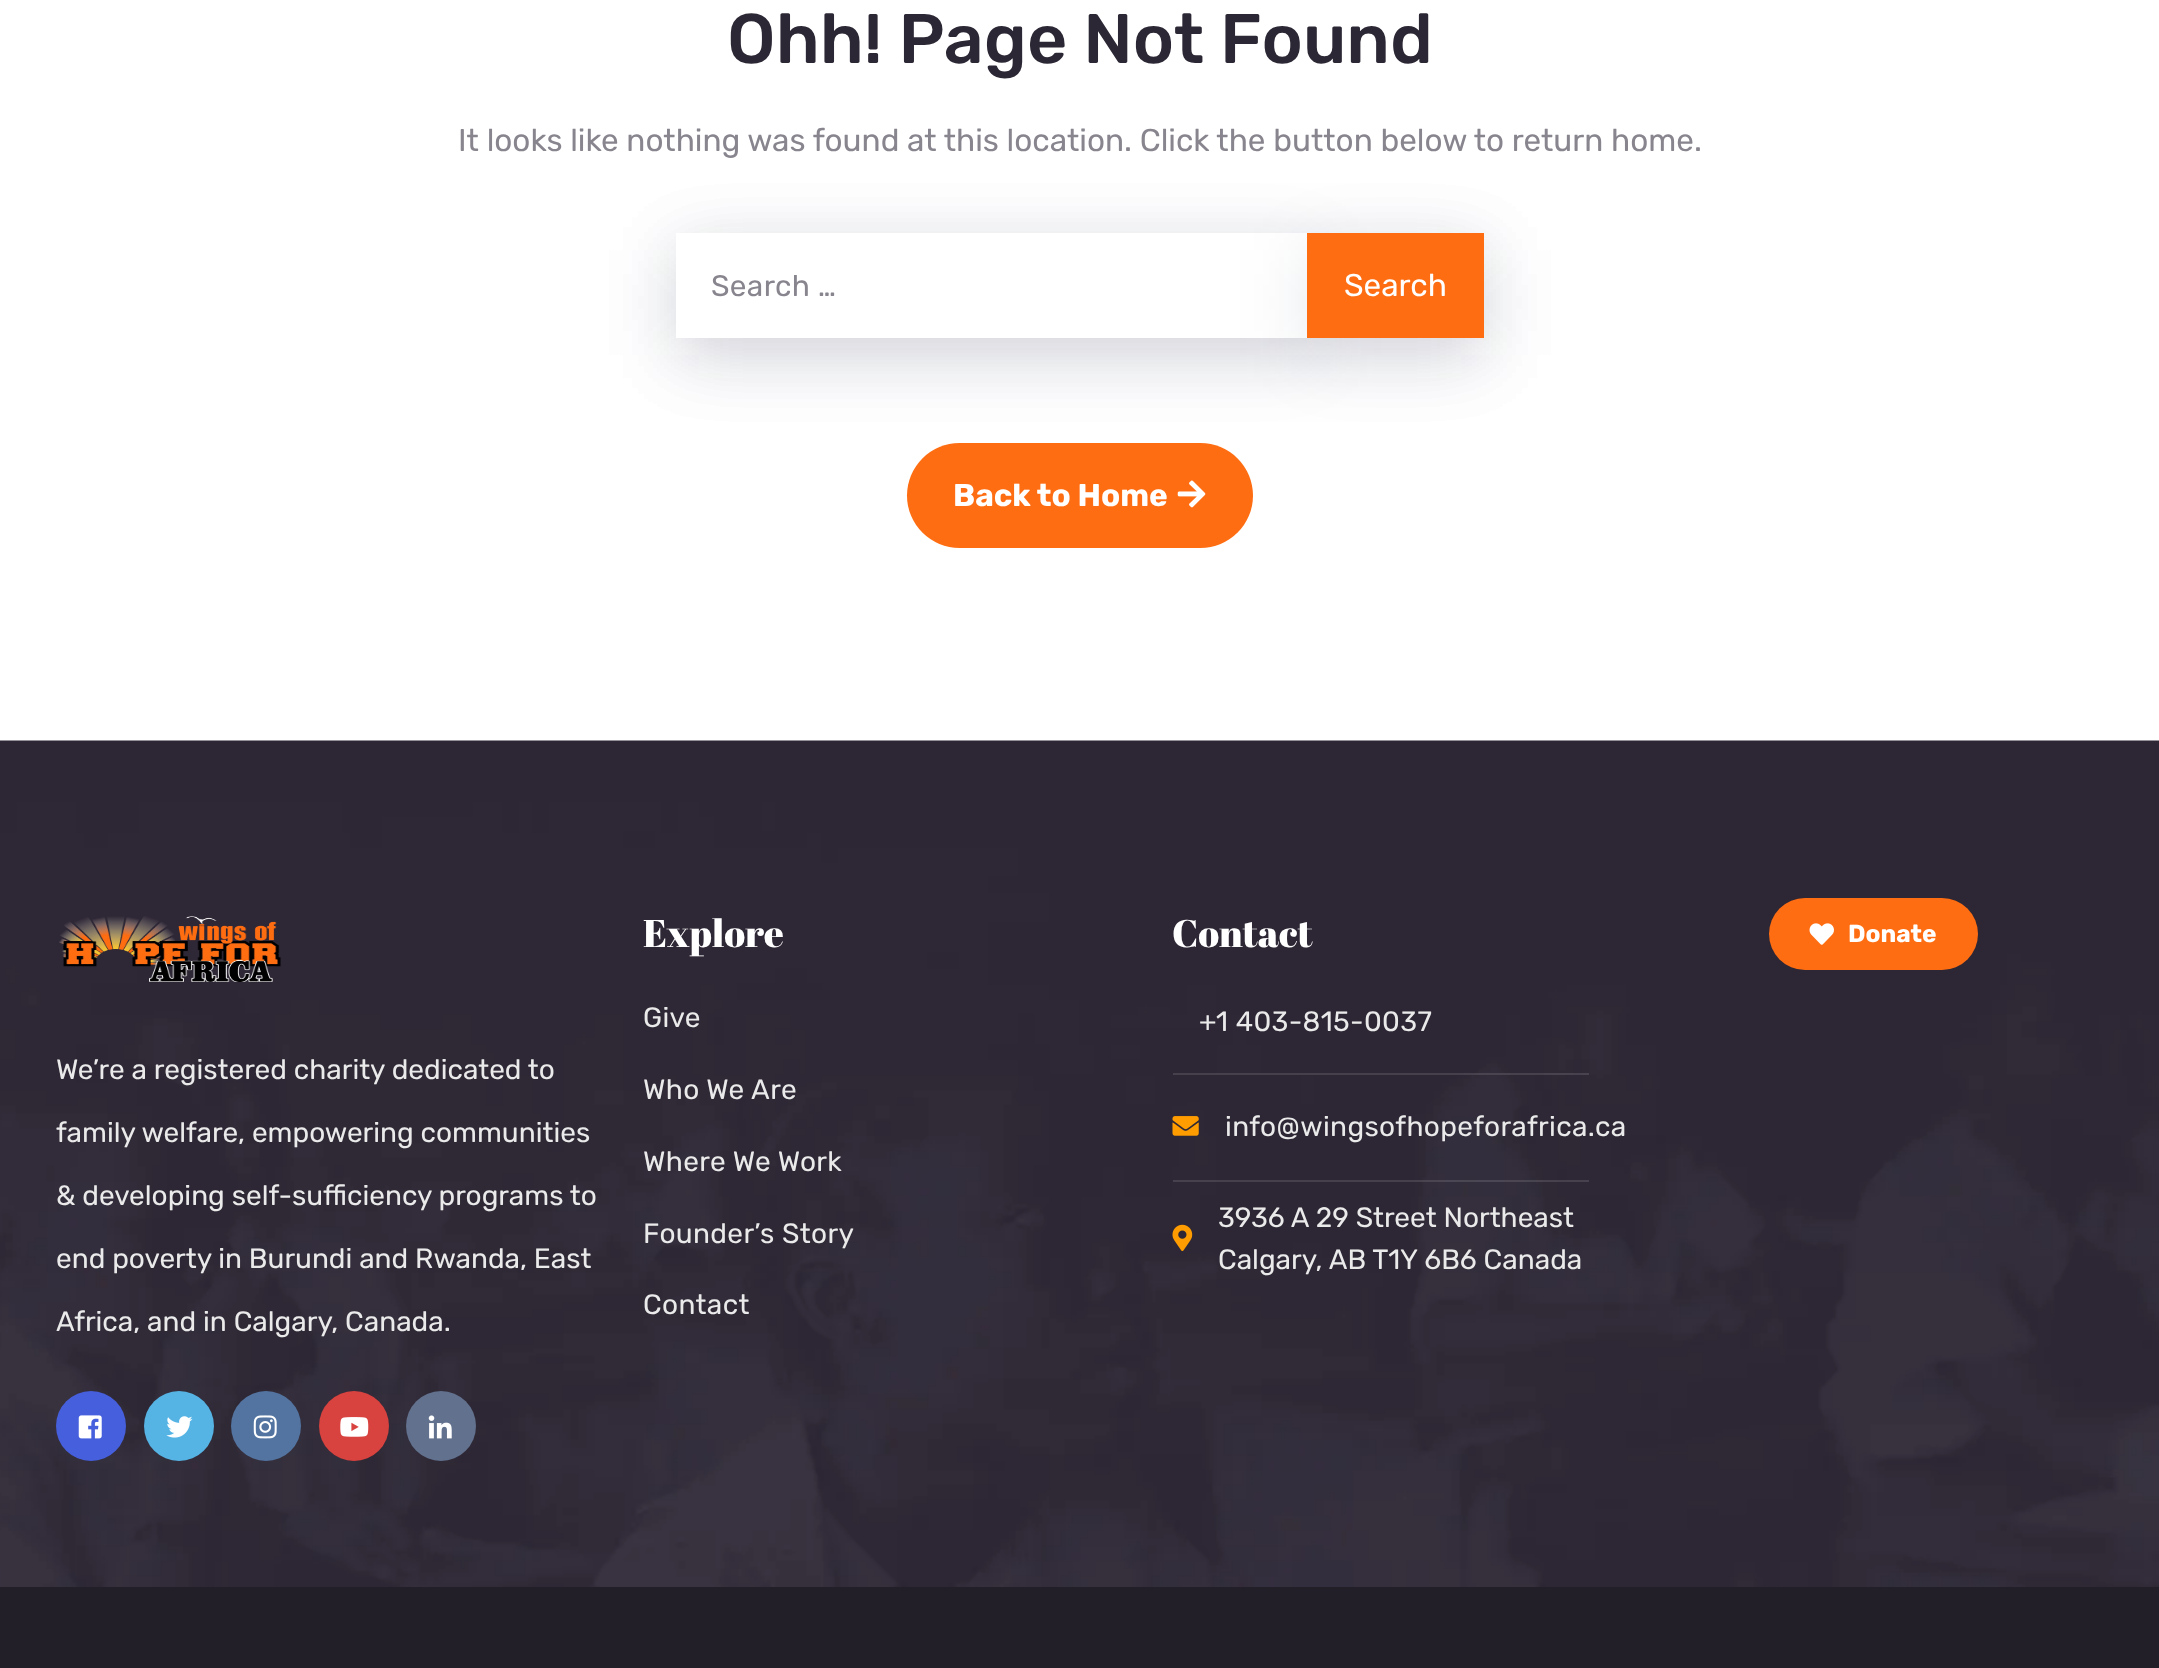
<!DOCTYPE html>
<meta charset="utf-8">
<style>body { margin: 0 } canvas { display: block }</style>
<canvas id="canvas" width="2159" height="1668"></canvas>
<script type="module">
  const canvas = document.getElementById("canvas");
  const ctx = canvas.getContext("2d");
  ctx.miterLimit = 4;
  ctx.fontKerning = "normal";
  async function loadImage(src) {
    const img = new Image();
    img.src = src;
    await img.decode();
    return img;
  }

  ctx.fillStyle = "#ffffff";
  ctx.fillRect(0, 0, 2159, 1668);
  ctx.font = "500 70px Rubik";
  ctx.fillStyle = "#2c2734";
  ctx.fillText("Ohh! Page Not Found", 727, 63);
  ctx.font = "31.5px Rubik";
  ctx.fillStyle = "#88858e";
  ctx.fillText("It looks like nothing was found at this location. Click the button below to return home.", 458, 151);
  ctx.fillStyle = "rgba(6, 22, 58, 0.1)";
  ctx.filter = "blur(35px)";
  ctx.beginPath();
  ctx.rect(676, 250, 808, 105);
  ctx.fill();
  ctx.filter = "none";
  ctx.filter = "blur(35px)";
  ctx.beginPath();
  ctx.rect(676, 250, 638, 105);
  ctx.fill();
  ctx.filter = "none";
  ctx.fillStyle = "#ffffff";
  ctx.fillRect(676, 233, 631, 105);
  ctx.letterSpacing = "0.35px";
  ctx.font = "29.75px Rubik";
  ctx.fillStyle = "#88858e";
  ctx.fillText("Search …", 711, 296);
  ctx.fillStyle = "#ff6d12";
  ctx.beginPath();
  ctx.roundRect(907, 443, 346, 105, 52.5);
  ctx.fill();
  ctx.fillStyle = "rgba(6, 22, 58, 0.1)";
  ctx.filter = "blur(35px)";
  ctx.beginPath();
  ctx.rect(1307, 250, 177, 105);
  ctx.fill();
  ctx.filter = "none";
  ctx.fillStyle = "#ff6d12";
  ctx.fillRect(1307, 233, 177, 105);
  ctx.letterSpacing = "0px";
  ctx.font = "31.5px Rubik";
  ctx.fillStyle = "#ffffff";
  ctx.fillText("Search", 1344, 296);
  ctx.font = "bold 31.5px Rubik";
  ctx.fillText("Back to Home", 953, 506);
  ctx.drawImage(await loadImage("img1.png"), 1177, 480, 29, 28);
  ctx.drawImage(await loadImage("img2.png"), 0, 740, 2159, 847);
  ctx.font = "38.5px Abril Fatface";
  ctx.fillText("Explore", 643, 947);
  ctx.letterSpacing = "0.35px";
  ctx.font = "28px Rubik";
  ctx.fillStyle = "#eaeaea";
  ctx.fillText("Give", 643, 1027);
  ctx.fillText("Who We Are", 643, 1099);
  ctx.fillText("Where We Work", 643, 1171);
  ctx.fillText("Founder’s Story", 643, 1243);
  ctx.fillText("Contact", 643, 1314);
  ctx.letterSpacing = "0px";
  ctx.font = "38.5px Abril Fatface";
  ctx.fillStyle = "#ffffff";
  ctx.fillText("Contact", 1172, 947);
  ctx.letterSpacing = "0.35px";
  ctx.font = "28px Rubik";
  ctx.fillStyle = "#eaeaea";
  ctx.fillText("+1 403-815-0037", 1199, 1031);
  ctx.fillStyle = "rgba(229, 229, 229, 0.14)";
  ctx.fillRect(1173, 1073, 416, 2);
  ctx.fillRect(1173, 1180, 416, 2);
  ctx.drawImage(await loadImage("img3.png"), 1172, 1116, 27, 20);
  ctx.fillStyle = "#eaeaea";
  ctx.fillText("info@wingsofhopeforafrica.ca", 1225, 1136);
  ctx.drawImage(await loadImage("img4.png"), 1172, 1224, 21, 27);
  ctx.letterSpacing = "0px";
  ctx.fillText("3936 A 29 Street Northeast", 1218, 1227);
  ctx.fillText("Calgary, AB T1Y 6B6 Canada", 1218, 1269);
  ctx.fillStyle = "#ff6d12";
  ctx.beginPath();
  ctx.roundRect(1769, 898, 209, 72, 36);
  ctx.fill();
  ctx.drawImage(await loadImage("img5.png"), 1809, 923, 25, 22);
  ctx.font = "bold 24.5px Rubik";
  ctx.fillStyle = "#ffffff";
  ctx.fillText("Donate", 1848, 942);
  ctx.drawImage(await loadImage("img6.png"), 59, 916, 222, 66);
  ctx.font = "28px Rubik";
  ctx.fillStyle = "#eaeaea";
  ctx.fillText("We’re a registered charity dedicated to", 56, 1079);
  ctx.fillText("family welfare, empowering communities", 56, 1142);
  ctx.fillText("& developing self-sufficiency programs to", 56, 1205);
  ctx.fillText("end poverty in Burundi and Rwanda, East", 56, 1268);
  ctx.fillText("Africa, and in Calgary, Canada.", 56, 1331);
  ctx.fillStyle = "#465fdd";
  ctx.beginPath();
  ctx.arc(91, 1426, 35, 0, Math.PI * 2);
  ctx.fill();
  ctx.drawImage(await loadImage("img7.png"), 78, 1415, 24, 24);
  ctx.fillStyle = "#56b4e5";
  ctx.beginPath();
  ctx.arc(179, 1426, 35, 0, Math.PI * 2);
  ctx.fill();
  ctx.drawImage(await loadImage("img8.png"), 166, 1416, 27, 22);
  ctx.fillStyle = "#5374a0";
  ctx.beginPath();
  ctx.arc(266, 1426, 35, 0, Math.PI * 2);
  ctx.fill();
  ctx.drawImage(await loadImage("img9.png"), 253, 1415, 24, 24);
  ctx.fillStyle = "#d8423f";
  ctx.beginPath();
  ctx.arc(354, 1426, 35, 0, Math.PI * 2);
  ctx.fill();
  ctx.drawImage(await loadImage("img10.png"), 340, 1417, 29, 20);
  ctx.fillStyle = "#62718d";
  ctx.beginPath();
  ctx.arc(441, 1426, 35, 0, Math.PI * 2);
  ctx.fill();
  ctx.drawImage(await loadImage("img11.png"), 428, 1415, 24, 24);
  ctx.fillStyle = "#231f29";
  ctx.fillRect(0, 1587, 2159, 81);
</script>
